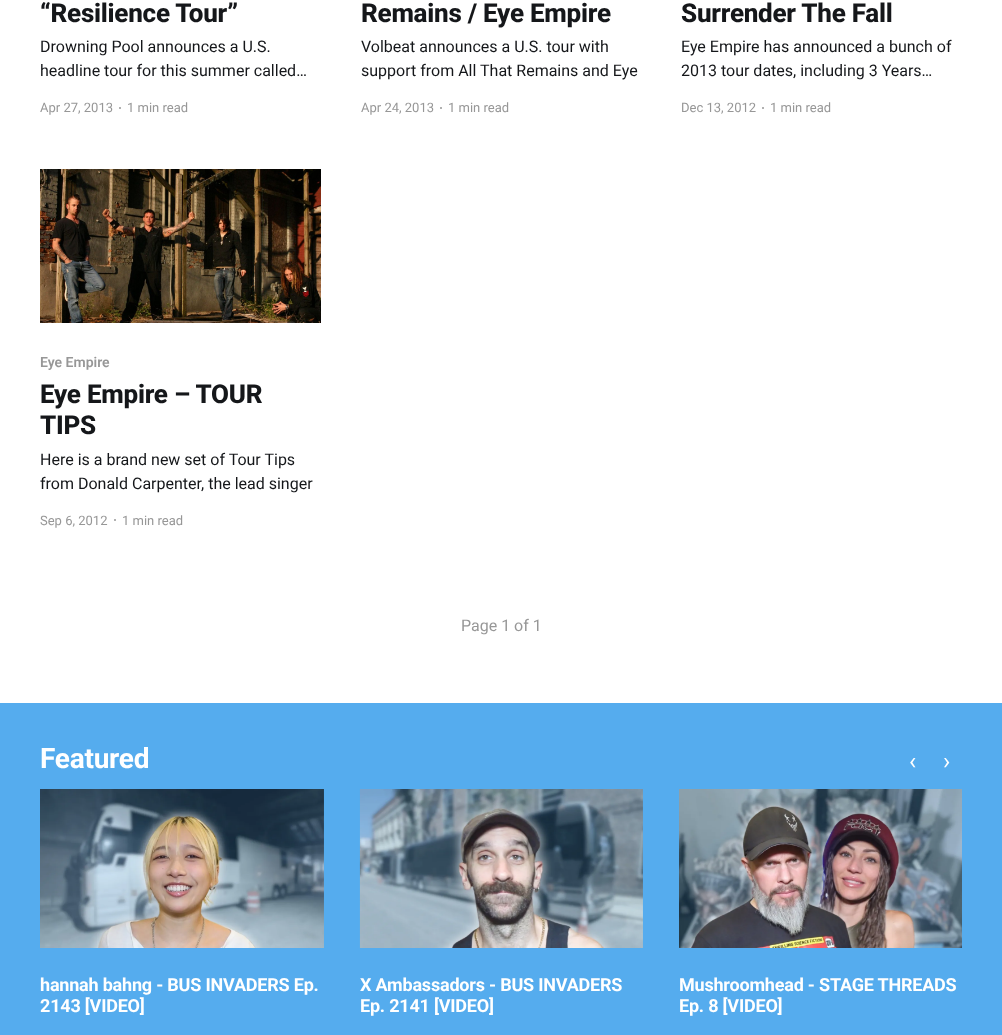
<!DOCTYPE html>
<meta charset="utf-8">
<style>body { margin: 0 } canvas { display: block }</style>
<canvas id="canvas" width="1002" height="1035"></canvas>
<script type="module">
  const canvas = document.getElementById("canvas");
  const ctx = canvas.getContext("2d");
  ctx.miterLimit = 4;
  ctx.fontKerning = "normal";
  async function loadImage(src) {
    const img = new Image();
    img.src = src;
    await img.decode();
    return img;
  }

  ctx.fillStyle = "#ffffff";
  ctx.fillRect(0, 0, 1002, 1035);
  ctx.letterSpacing = "-0.25px";
  ctx.font = "800 26px Roboto";
  ctx.fillStyle = "#15171a";
  ctx.fillText("“Resilience Tour”", 40, 22);
  ctx.letterSpacing = "0px";
  ctx.font = "16px Roboto";
  ctx.fillText("Drowning Pool announces a U.S.", 40, 52);
  ctx.fillText("headline tour for this summer called…", 40, 76);
  ctx.font = "13px Roboto";
  ctx.fillStyle = "#979797";
  ctx.fillText("Apr 27, 2013", 40, 112);
  ctx.beginPath();
  ctx.arc(120, 108, 1, 0, Math.PI * 2);
  ctx.fill();
  ctx.fillText("1 min read", 127, 112);
  ctx.letterSpacing = "-0.25px";
  ctx.font = "800 26px Roboto";
  ctx.fillStyle = "#15171a";
  ctx.fillText("Remains / Eye Empire", 361, 22);
  ctx.letterSpacing = "0px";
  ctx.font = "16px Roboto";
  ctx.fillText("Volbeat announces a U.S. tour with", 361, 52);
  ctx.fillText("support from All That Remains and Eye", 361, 76);
  ctx.font = "13px Roboto";
  ctx.fillStyle = "#979797";
  ctx.fillText("Apr 24, 2013", 361, 112);
  ctx.beginPath();
  ctx.arc(441, 108, 1, 0, Math.PI * 2);
  ctx.fill();
  ctx.fillText("1 min read", 448, 112);
  ctx.letterSpacing = "-0.25px";
  ctx.font = "800 26px Roboto";
  ctx.fillStyle = "#15171a";
  ctx.fillText("Surrender The Fall", 681, 22);
  ctx.letterSpacing = "0px";
  ctx.font = "16px Roboto";
  ctx.fillText("Eye Empire has announced a bunch of", 681, 52);
  ctx.fillText("2013 tour dates, including 3 Years…", 681, 76);
  ctx.font = "13px Roboto";
  ctx.fillStyle = "#979797";
  ctx.fillText("Dec 13, 2012", 681, 112);
  ctx.beginPath();
  ctx.arc(763, 108, 1, 0, Math.PI * 2);
  ctx.fill();
  ctx.fillText("1 min read", 770, 112);
  ctx.drawImage(await loadImage("img1.png"), 40, 169, 281, 154);
  ctx.font = "600 14px Roboto";
  ctx.fillText("Eye Empire", 40, 367);
  ctx.letterSpacing = "-0.25px";
  ctx.font = "800 26px Roboto";
  ctx.fillStyle = "#15171a";
  ctx.fillText("Eye Empire – TOUR", 40, 403);
  ctx.fillText("TIPS", 40, 434);
  ctx.letterSpacing = "0px";
  ctx.font = "16px Roboto";
  ctx.fillText("Here is a brand new set of Tour Tips", 40, 465);
  ctx.fillText("from Donald Carpenter, the lead singer", 40, 489);
  ctx.font = "13px Roboto";
  ctx.fillStyle = "#979797";
  ctx.fillText("Sep 6, 2012", 40, 525);
  ctx.beginPath();
  ctx.arc(115, 520, 1, 0, Math.PI * 2);
  ctx.fill();
  ctx.fillText("1 min read", 122, 525);
  ctx.font = "16px Roboto";
  ctx.fillText("Page 1 of 1", 461, 631);
  ctx.fillStyle = "#55acee";
  ctx.fillRect(0, 703, 1002, 332);
  ctx.letterSpacing = "-0.25px";
  ctx.font = "bold 28px Roboto";
  ctx.fillStyle = "#ffffff";
  ctx.fillText("Featured", 40, 768);
  ctx.letterSpacing = "0px";
  ctx.font = "24px Roboto";
  ctx.fillText("‹", 909, 769);
  ctx.fillText("›", 943, 769);
  ctx.drawImage(await loadImage("img2.png"), 40, 789, 284, 159);
  ctx.letterSpacing = "-0.2px";
  ctx.font = "bold 18px Roboto";
  ctx.fillText("hannah bahng - BUS INVADERS Ep.", 40, 991);
  ctx.fillText("2143 [VIDEO]", 40, 1012);
  ctx.drawImage(await loadImage("img3.png"), 359, 789, 284, 159);
  ctx.fillText("X Ambassadors - BUS INVADERS", 360, 991);
  ctx.fillText("Ep. 2141 [VIDEO]", 360, 1012);
  ctx.drawImage(await loadImage("img4.png"), 679, 789, 283, 159);
  ctx.fillText("Mushroomhead - STAGE THREADS", 679, 991);
  ctx.fillText("Ep. 8 [VIDEO]", 679, 1012);
</script>
